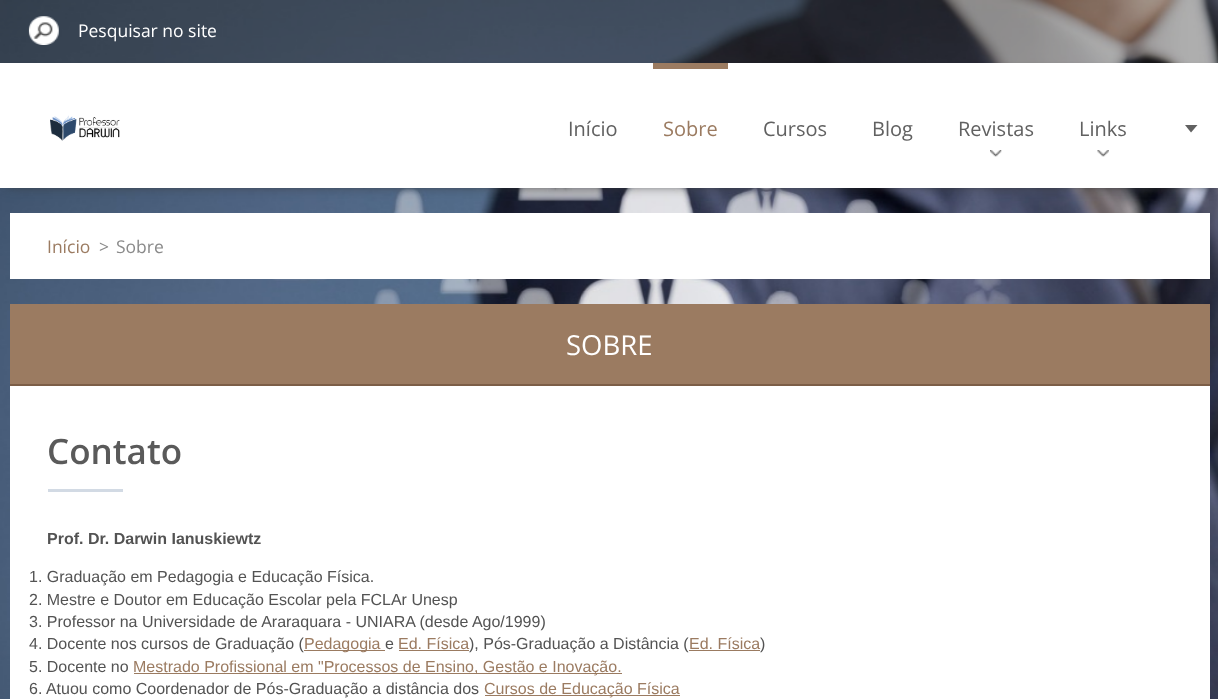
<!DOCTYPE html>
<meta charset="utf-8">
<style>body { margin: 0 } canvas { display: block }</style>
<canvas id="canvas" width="1218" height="699"></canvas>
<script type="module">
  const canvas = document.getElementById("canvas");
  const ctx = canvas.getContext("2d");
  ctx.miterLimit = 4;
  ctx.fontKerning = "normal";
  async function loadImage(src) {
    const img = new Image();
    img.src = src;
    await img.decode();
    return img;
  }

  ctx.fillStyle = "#ffffff";
  ctx.fillRect(0, 0, 1218, 699);
  ctx.drawImage(await loadImage("img1.png"), 0, 0, 1218, 699);
  ctx.fillStyle = "rgba(53, 53, 53, 0.4)";
  ctx.fillRect(0, 0, 1218, 63);
  ctx.drawImage(await loadImage("img2.png"), 28, 16, 31, 29);
  ctx.font = "17.5px Open Sans";
  ctx.fillStyle = "#ffffff";
  ctx.fillText("Pesquisar no site", 78, 37);
  ctx.fillStyle = "#353535";
  ctx.filter = "blur(6px)";
  ctx.beginPath();
  ctx.rect(8, 75, 1203, 110);
  ctx.fill();
  ctx.filter = "none";
  ctx.fillStyle = "#ffffff";
  ctx.fillRect(0, 63, 1218, 125);
  ctx.drawImage(await loadImage("img3.png"), 50, 115, 70, 26);
  ctx.font = "20px Open Sans";
  ctx.fillStyle = "#616161";
  ctx.fillText("Início", 568, 136);
  ctx.fillStyle = "#9b7b61";
  ctx.fillRect(653, 63, 75, 6);
  ctx.fillText("Sobre", 663, 136);
  ctx.fillStyle = "#616161";
  ctx.fillText("Cursos", 763, 136);
  ctx.fillText("Blog", 872, 136);
  ctx.fillText("Revistas", 958, 136);
  ctx.drawImage(await loadImage("img4.png"), 990, 150, 12, 7);
  ctx.fillText("Links", 1079, 136);
  ctx.drawImage(await loadImage("img5.png"), 1097, 150, 12, 7);
  ctx.beginPath();
  ctx.moveTo(1185, 125);
  ctx.lineTo(1197.5, 125);
  ctx.lineTo(1191, 132.5);
  ctx.closePath();
  ctx.fill();
  ctx.fillStyle = "#ffffff";
  ctx.fillRect(10, 213, 1200, 66);
  ctx.font = "17.5px Open Sans";
  ctx.fillStyle = "#9b7b61";
  ctx.fillText("Início", 47, 253);
  ctx.fillStyle = "#8a8a8a";
  ctx.fillText(">", 99, 253);
  ctx.fillText("Sobre", 116, 253);
  ctx.fillStyle = "#9b7b61";
  ctx.fillRect(10, 304, 1200, 80);
  ctx.fillStyle = "#7c5e47";
  ctx.fillRect(10, 384, 1200, 2);
  ctx.font = "27.5px Open Sans";
  ctx.fillStyle = "#ffffff";
  ctx.fillText("SOBRE", 566, 355);
  ctx.fillRect(10, 386, 1200, 313);
  ctx.font = "600 35px Open Sans";
  ctx.fillStyle = "#5a5a5a";
  ctx.fillText("Contato", 47, 464);
  ctx.fillStyle = "#d2dae4";
  ctx.fillRect(48, 489, 75, 3);
  ctx.font = "bold 16px Liberation Sans";
  ctx.fillStyle = "#535353";
  ctx.fillText("Prof. Dr. Darwin Ianuskiewtz", 47, 544);
  ctx.font = "16px Liberation Sans";
  ctx.fillText("1. Graduação em Pedagogia e Educação Física.", 29, 582);
  ctx.fillText("2. Mestre e Doutor em Educação Escolar pela FCLAr Unesp", 29, 605);
  ctx.fillText("3. Professor na Universidade de Araraquara - UNIARA (desde Ago/1999)", 29, 627);
  ctx.fillText("4. Docente nos cursos de Graduação (", 29, 649);
  ctx.fillStyle = "#9b7b61";
  ctx.fillRect(304, 650, 76, 1);
  ctx.fillText("Pedagogia", 304, 649);
  ctx.fillStyle = "#535353";
  ctx.fillText("e", 385, 649);
  ctx.fillStyle = "#9b7b61";
  ctx.fillText("Ed. Física", 398, 649);
  ctx.fillRect(399, 650, 70, 1);
  ctx.fillStyle = "#535353";
  ctx.fillText("), Pós-Graduação a Distância (", 469, 649);
  ctx.fillStyle = "#9b7b61";
  ctx.fillText("Ed. Física", 689, 649);
  ctx.fillRect(689, 650, 71, 1);
  ctx.fillStyle = "#535353";
  ctx.fillText(")", 760, 649);
  ctx.fillStyle = "#9b7b61";
  ctx.fillRect(380, 650, 5, 1);
  ctx.fillStyle = "#535353";
  ctx.fillText("5. Docente no", 29, 672);
  ctx.fillStyle = "#9b7b61";
  ctx.fillRect(134, 673, 488, 1);
  ctx.fillText("Mestrado Profissional em \"Processos de Ensino, Gestão e Inovação.", 133, 672);
  ctx.fillStyle = "#535353";
  ctx.fillText("6. Atuou como Coordenador de Pós-Graduação a distância dos", 29, 694);
  ctx.fillStyle = "#9b7b61";
  ctx.fillRect(485, 695, 195, 1);
  ctx.fillText("Cursos de Educação Física", 484, 694);
</script>
